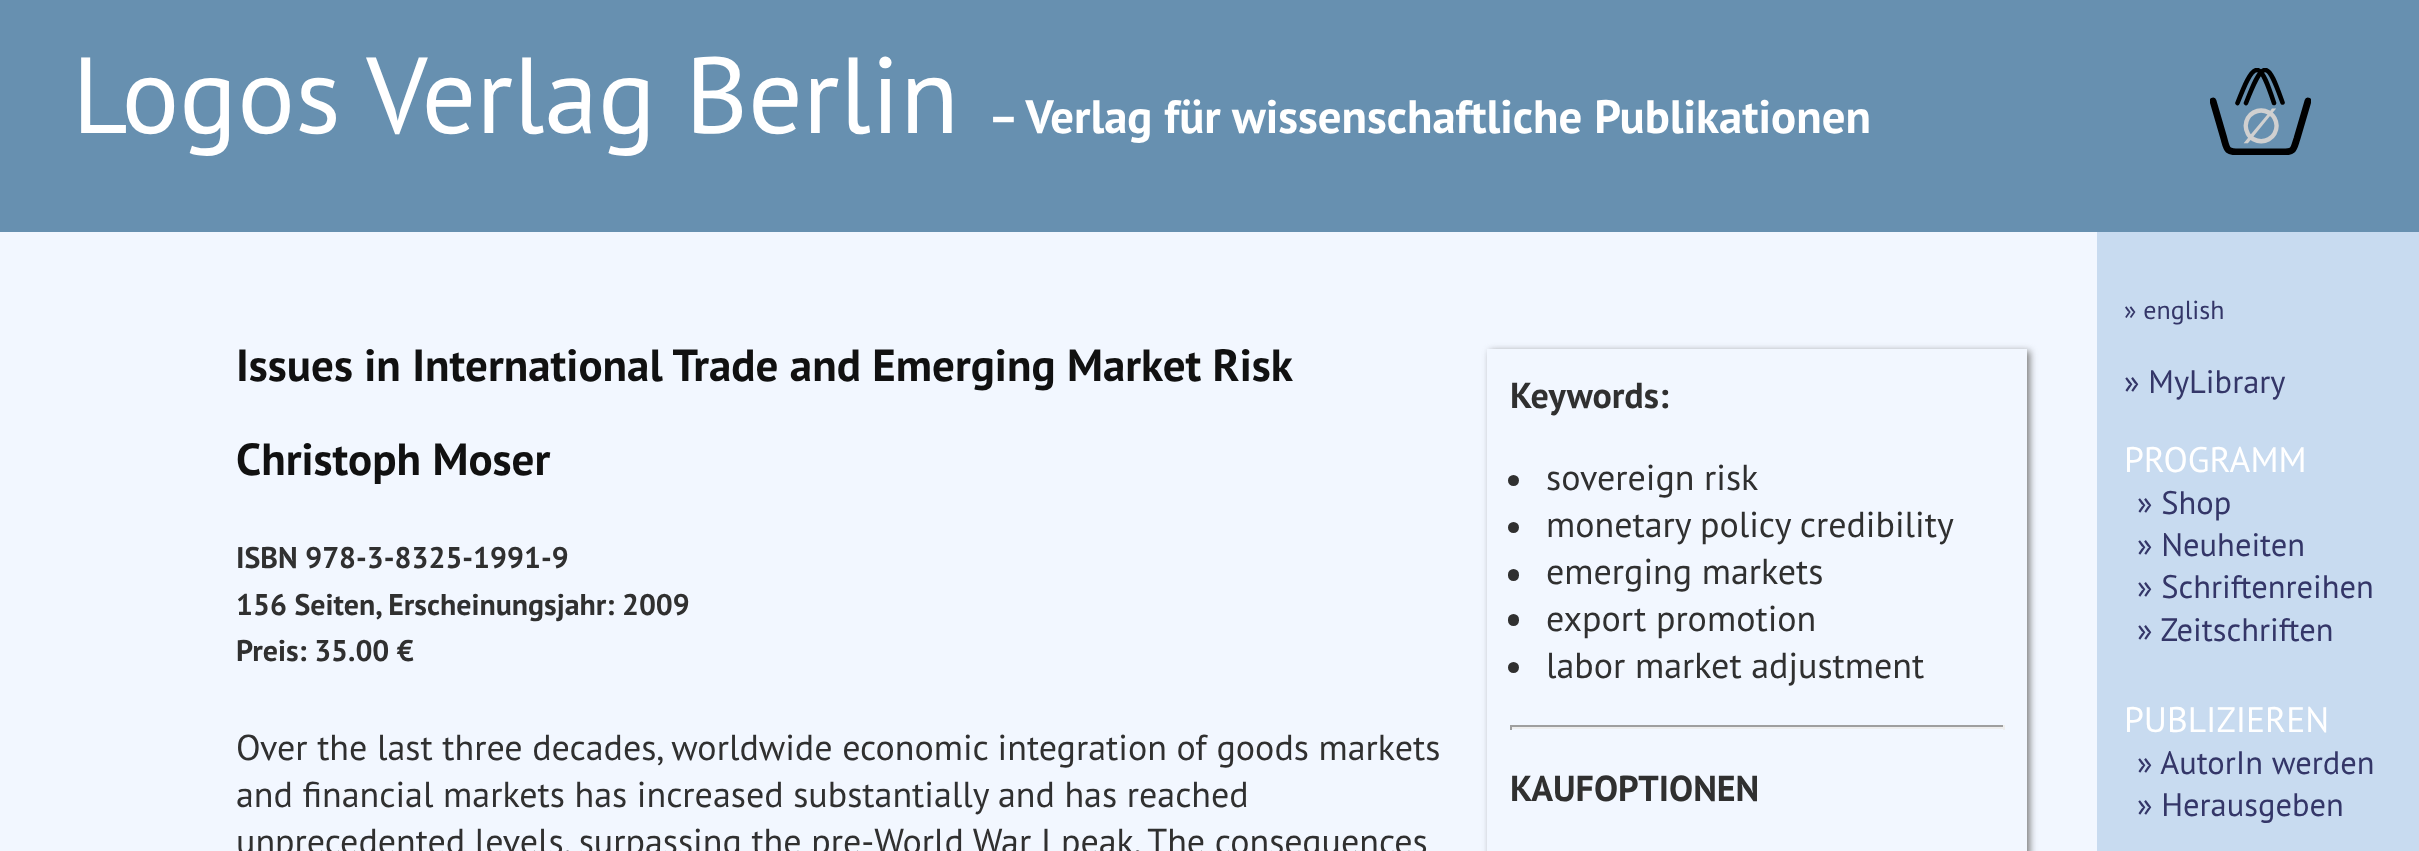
<!DOCTYPE html>
<meta charset="utf-8">
<style>body { margin: 0 } canvas { display: block }</style>
<canvas id="canvas" width="2419" height="851"></canvas>
<script type="module">
  const canvas = document.getElementById("canvas");
  const ctx = canvas.getContext("2d");
  ctx.miterLimit = 4;
  ctx.fontKerning = "normal";

  ctx.fillStyle = "#f2f7ff";
  ctx.fillRect(0, 0, 2419, 851);
  ctx.fillStyle = "#6790b0";
  ctx.fillRect(0, 0, 2419, 232);
  ctx.font = "108px PT Sans";
  ctx.fillStyle = "#ffffff";
  ctx.fillText("Logos Verlag Berlin", 72, 133);
  ctx.font = "bold 46.75px PT Sans";
  ctx.fillText("– Verlag für wissenschaftliche Publikationen", 988, 133);
  ctx.save();
  ctx.beginPath();
  ctx.rect(2210, 68, 101, 87);
  ctx.clip();
  ctx.beginPath();
  ctx.moveTo(2213, 101);
  ctx.lineTo(2223.5, 137);
  ctx.bezierCurveTo(2227, 149.5, 2226, 152, 2239, 152);
  ctx.lineTo(2283, 152);
  ctx.bezierCurveTo(2294.5, 152, 2293.5, 149, 2297, 138.5);
  ctx.lineTo(2308, 101);
  ctx.strokeStyle = "#000000";
  ctx.lineWidth = 6.9;
  ctx.lineCap = "round";
  ctx.stroke();
  ctx.restore();
  ctx.font = "bold 47px DejaVu Sans";
  ctx.fillStyle = "#d0d0d0";
  ctx.fillText("∅", 2240, 143);
  ctx.save();
  ctx.beginPath();
  ctx.rect(2210, 68, 101, 87);
  ctx.clip();
  ctx.beginPath();
  ctx.moveTo(2237.5, 103);
  ctx.bezierCurveTo(2244, 86.5, 2250.5, 70, 2257, 70);
  ctx.bezierCurveTo(2263, 70, 2268.5, 86.5, 2274, 103);
  ctx.moveTo(2246, 103);
  ctx.bezierCurveTo(2252.5, 86.5, 2259, 70, 2265, 70);
  ctx.bezierCurveTo(2271, 69.5, 2276.5, 86, 2282.5, 102.5);
  ctx.strokeStyle = "#000000";
  ctx.lineWidth = 4.6;
  ctx.lineCap = "round";
  ctx.stroke();
  ctx.restore();
  ctx.font = "bold 45px PT Sans";
  ctx.fillStyle = "#111111";
  ctx.fillText("Issues in International Trade and Emerging Market Risk", 236, 381);
  ctx.fillText("Christoph Moser", 236, 475);
  ctx.font = "bold 29.9px PT Sans";
  ctx.fillStyle = "#303030";
  ctx.fillText("ISBN 978-3-8325-1991-9", 236, 568);
  ctx.fillText("156 Seiten, Erscheinungsjahr: 2009", 236, 615);
  ctx.fillText("Preis: 35.00 €", 236, 661);
  ctx.font = "36px PT Sans";
  ctx.fillText("Over the last three decades, worldwide economic integration of goods markets", 236, 760);
  ctx.fillText("and financial markets has increased substantially and has reached", 236, 807);
  ctx.fillText("unprecedented levels, surpassing the pre-World War I peak. The consequences", 236, 854);
  ctx.save();
  ctx.beginPath();
  ctx.moveTo(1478, 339);
  ctx.lineTo(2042, 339);
  ctx.lineTo(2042, 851);
  ctx.lineTo(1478, 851);
  ctx.closePath();
  ctx.moveTo(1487, 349);
  ctx.lineTo(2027, 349);
  ctx.lineTo(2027, 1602);
  ctx.lineTo(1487, 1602);
  ctx.closePath();
  ctx.clip("evenodd");
  ctx.fillStyle = "#808080";
  ctx.filter = "blur(3.5px)";
  ctx.beginPath();
  ctx.rect(1490, 351, 540, 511);
  ctx.fill();
  ctx.filter = "none";
  ctx.restore();
  ctx.font = "bold 36px PT Sans";
  ctx.fillText("Keywords:", 1510, 408);
  ctx.beginPath();
  ctx.arc(1513.5, 480.5, 5.5, 0, Math.PI * 2);
  ctx.fill();
  ctx.font = "36px PT Sans";
  ctx.fillText("sovereign risk", 1546, 490);
  ctx.beginPath();
  ctx.arc(1513.5, 527.5, 5.5, 0, Math.PI * 2);
  ctx.fill();
  ctx.fillText("monetary policy credibility", 1546, 537);
  ctx.beginPath();
  ctx.roundRect(1508, 569, 11, 12, 5.5);
  ctx.fill();
  ctx.fillText("emerging markets", 1546, 584);
  ctx.beginPath();
  ctx.roundRect(1508, 614, 11, 12, 5.5);
  ctx.fill();
  ctx.fillText("export promotion", 1546, 631);
  ctx.beginPath();
  ctx.arc(1513.5, 667.5, 5.5, 0, Math.PI * 2);
  ctx.fill();
  ctx.fillText("labor market adjustment", 1546, 678);
  ctx.fillStyle = "#9f9f9f";
  ctx.fillRect(1510, 725, 495, 2);
  ctx.fillStyle = "#eeeeee";
  ctx.fillRect(2003, 725, 2, 5);
  ctx.fillRect(1510, 727, 495, 2);
  ctx.fillStyle = "#9f9f9f";
  ctx.fillRect(1510, 725, 2, 5);
  ctx.font = "bold 36px PT Sans";
  ctx.fillStyle = "#303030";
  ctx.fillText("KAUFOPTIONEN", 1510, 801);
  ctx.fillStyle = "#c8dbf0";
  ctx.fillRect(2097, 232, 322, 619);
  ctx.font = "26px PT Sans";
  ctx.fillStyle = "#343668";
  ctx.fillText("» english", 2124, 319);
  ctx.font = "32.5px PT Sans";
  ctx.fillText("» MyLibrary", 2124, 393);
  ctx.font = "35.5px PT Sans";
  ctx.fillStyle = "#ffffff";
  ctx.fillText("PROGRAMM", 2124, 472);
  ctx.font = "32.5px PT Sans";
  ctx.fillStyle = "#343668";
  ctx.fillText("» Shop", 2137, 514);
  ctx.fillText("» Neuheiten", 2137, 556);
  ctx.fillText("» Schriftenreihen", 2137, 598);
  ctx.fillText("» Zeitschriften", 2137, 641);
  ctx.font = "35.5px PT Sans";
  ctx.fillStyle = "#ffffff";
  ctx.fillText("PUBLIZIEREN", 2124, 732);
  ctx.font = "32.5px PT Sans";
  ctx.fillStyle = "#343668";
  ctx.fillText("» AutorIn werden", 2137, 774);
  ctx.fillText("» Herausgeben", 2137, 816);
</script>
